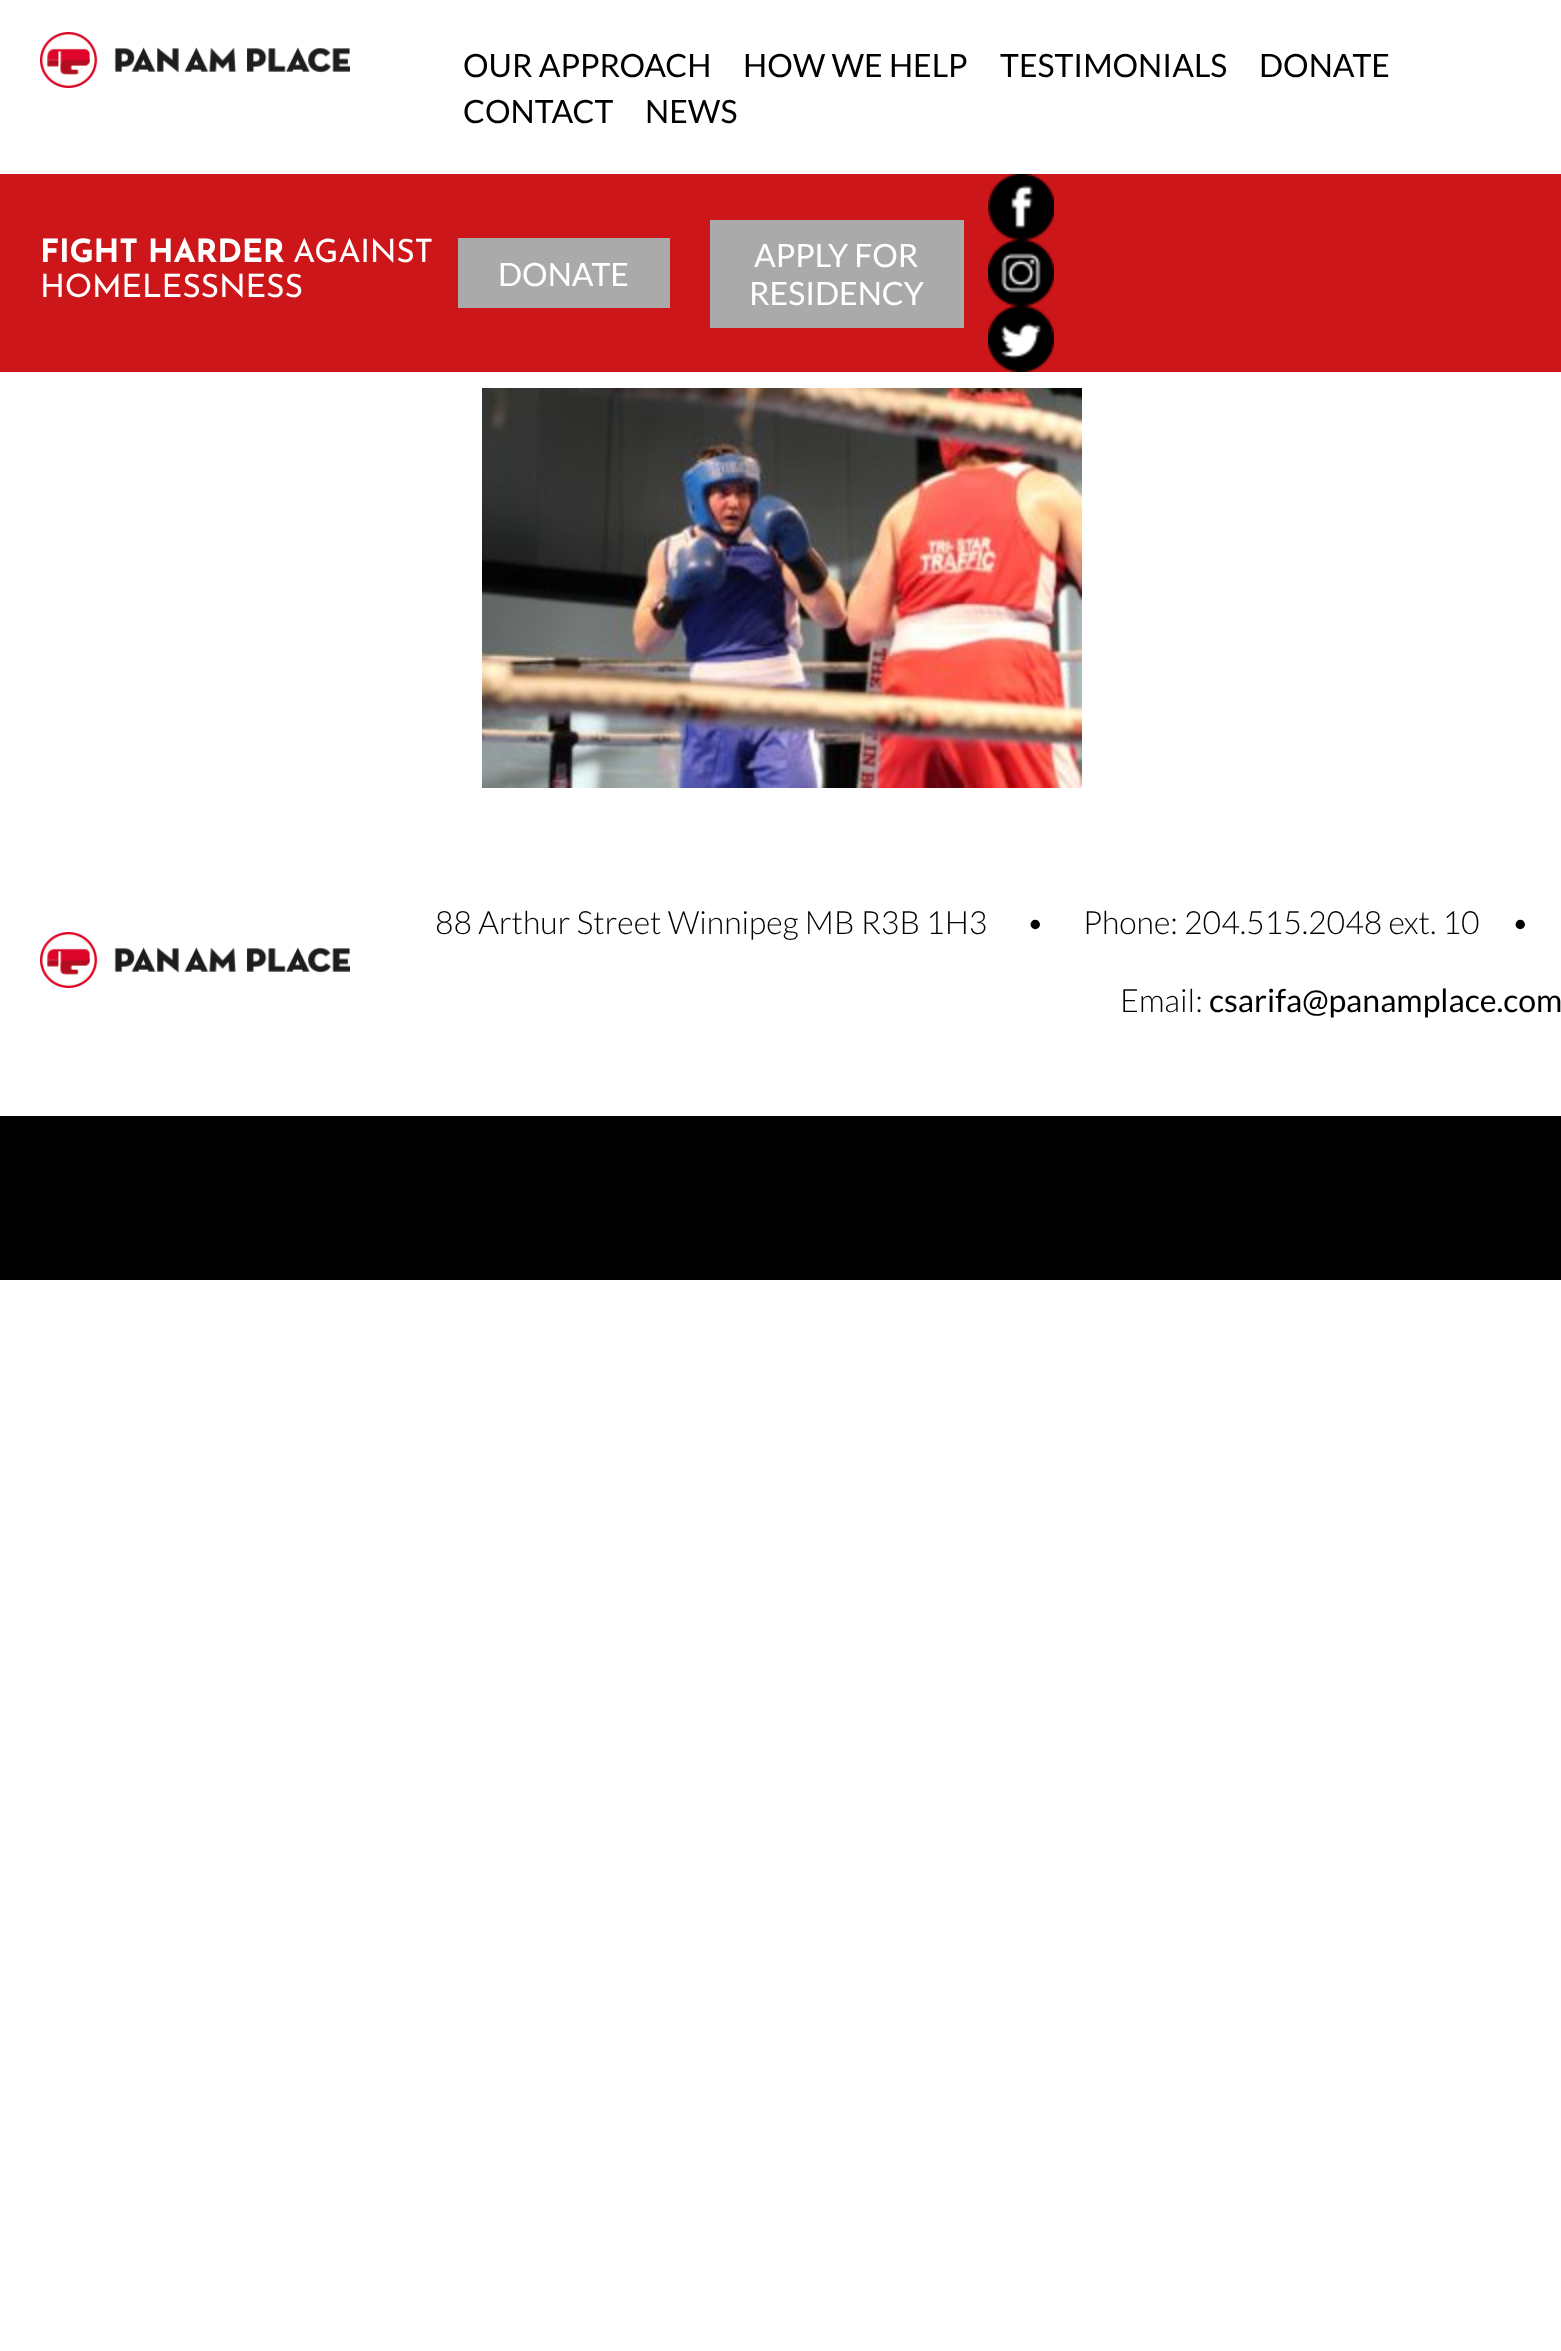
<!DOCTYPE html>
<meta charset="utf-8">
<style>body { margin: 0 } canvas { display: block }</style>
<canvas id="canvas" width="1561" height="2351"></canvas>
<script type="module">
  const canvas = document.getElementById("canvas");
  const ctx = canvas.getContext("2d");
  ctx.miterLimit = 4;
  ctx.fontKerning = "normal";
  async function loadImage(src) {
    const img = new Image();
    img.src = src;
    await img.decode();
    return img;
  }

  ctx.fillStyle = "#ffffff";
  ctx.fillRect(0, 0, 1561, 2351);
  ctx.drawImage(await loadImage("img1.png"), 40, 32, 310, 56);
  ctx.font = "32px Lato";
  ctx.fillStyle = "#000000";
  ctx.fillText("OUR APPROACH", 463, 77);
  ctx.fillText("HOW WE HELP", 743, 77);
  ctx.fillText("TESTIMONIALS", 1000, 77);
  ctx.fillText("DONATE", 1259, 77);
  ctx.fillText("CONTACT", 463, 123);
  ctx.fillText("NEWS", 645, 123);
  ctx.fillStyle = "#cd1619";
  ctx.fillRect(0, 174, 1561, 198);
  ctx.letterSpacing = "-0.25px";
  ctx.font = "bold 32px Josefin Sans";
  ctx.fillStyle = "#ffffff";
  ctx.fillText("FIGHT HARDER", 40, 262);
  ctx.font = "32px Josefin Sans";
  ctx.fillText("AGAINST", 293, 262);
  ctx.fillText("HOMELESSNESS", 40, 297);
  ctx.fillStyle = "#aaaaaa";
  ctx.fillRect(458, 238, 212, 70);
  ctx.letterSpacing = "0px";
  ctx.font = "32px Lato";
  ctx.fillStyle = "#ffffff";
  ctx.fillText("DONATE", 498, 286);
  ctx.fillStyle = "#aaaaaa";
  ctx.fillRect(710, 220, 254, 108);
  ctx.fillStyle = "#ffffff";
  ctx.fillText("APPLY FOR", 754, 267);
  ctx.fillText("RESIDENCY", 749, 305);
  ctx.drawImage(await loadImage("img2.png"), 988, 174, 66, 66);
  ctx.drawImage(await loadImage("img3.png"), 988, 240, 66, 66);
  ctx.drawImage(await loadImage("img4.png"), 988, 306, 66, 66);
  ctx.drawImage(await loadImage("img5.png"), 482, 388, 600, 400);
  ctx.drawImage(await loadImage("img1.png"), 40, 932, 310, 56);
  ctx.font = "300 32px Lato";
  ctx.fillStyle = "#000000";
  ctx.fillText("88 Arthur Street Winnipeg MB R3B 1H3", 435, 934);
  ctx.fillText("•", 1026, 934);
  ctx.fillText("Phone: 204.515.2048 ext. 10", 1083, 934);
  ctx.fillText("•", 1511, 934);
  ctx.fillText("Email:", 1120, 1012);
  ctx.font = "32px Lato";
  ctx.fillText("csarifa@panamplace.com", 1209, 1012);
  ctx.fillRect(0, 1116, 1561, 164);
</script>
